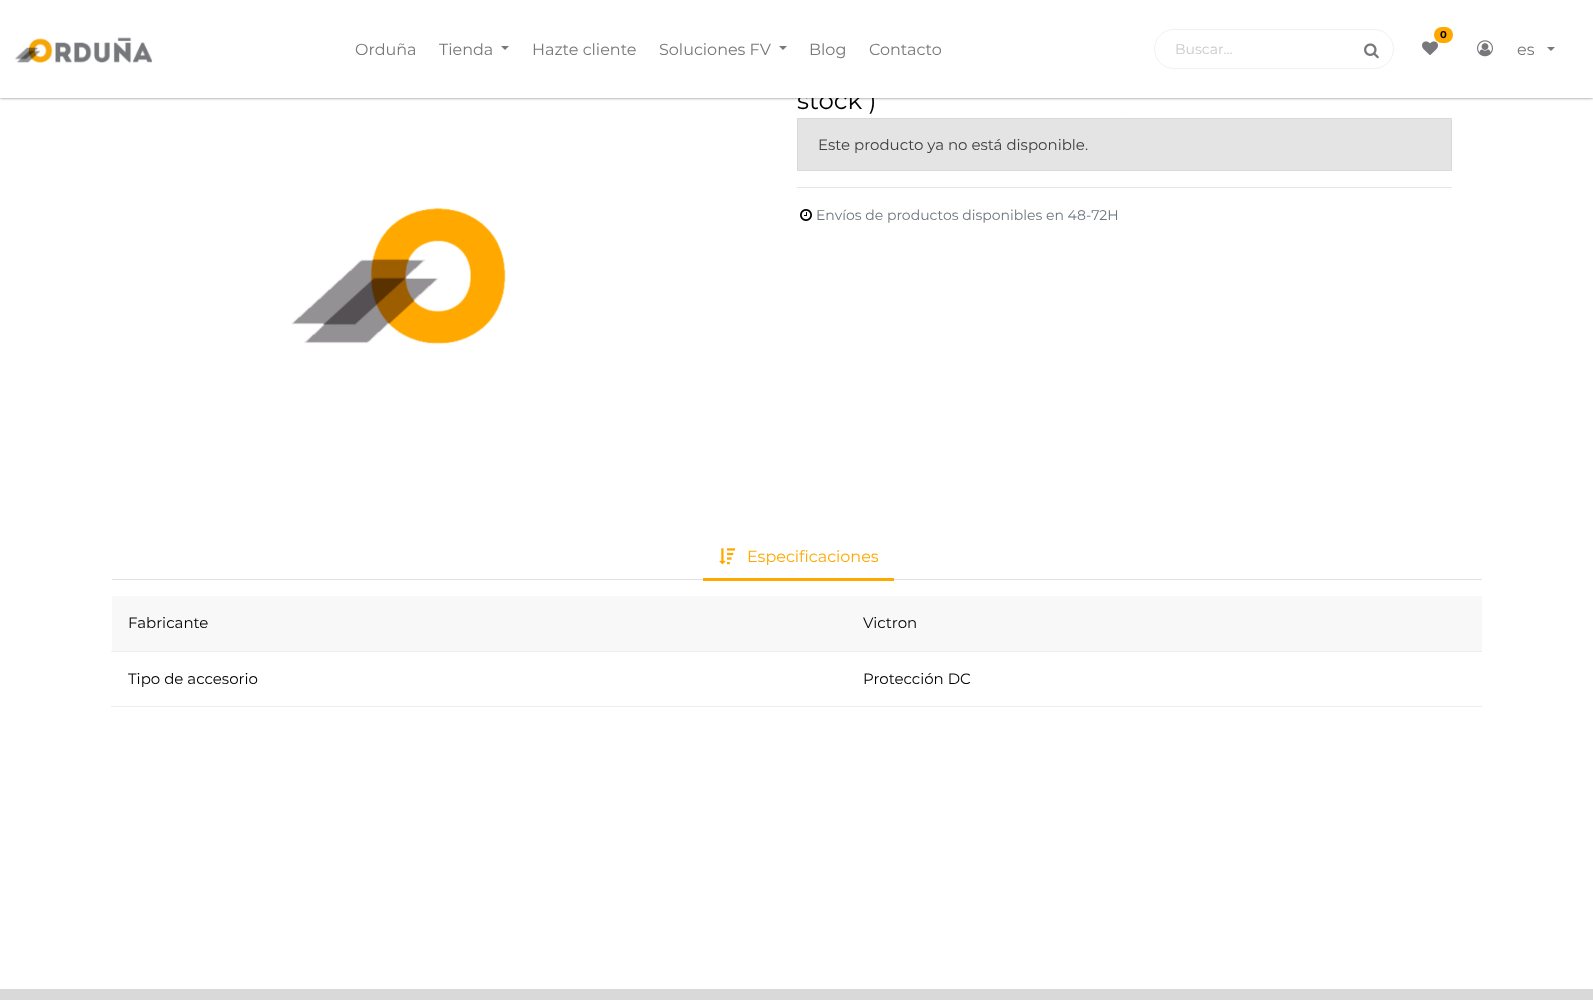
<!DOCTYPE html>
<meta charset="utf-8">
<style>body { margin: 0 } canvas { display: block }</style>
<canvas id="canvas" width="1593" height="1000"></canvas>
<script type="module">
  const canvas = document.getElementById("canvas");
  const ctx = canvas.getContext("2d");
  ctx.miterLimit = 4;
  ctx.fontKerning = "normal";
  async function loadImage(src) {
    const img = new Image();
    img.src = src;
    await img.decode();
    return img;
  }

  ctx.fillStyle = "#ffffff";
  ctx.fillRect(0, 0, 1593, 1000);
  ctx.fillStyle = "#757575";
  ctx.filter = "blur(1.5px)";
  ctx.beginPath();
  ctx.rect(0, 0, 1593, 98);
  ctx.fill();
  ctx.filter = "none";
  ctx.font = "24.5px Montserrat";
  ctx.fillStyle = "#000000";
  ctx.fillText("stock )", 797, 109);
  ctx.fillStyle = "#ffffff";
  ctx.fillRect(0, 0, 1593, 98);
  ctx.drawImage(await loadImage("img1.png"), 15, 37, 138, 26);
  ctx.font = "16px Montserrat";
  ctx.fillStyle = "#78787c";
  ctx.fillText("Orduña", 355, 55);
  ctx.fillText("Tienda", 439, 55);
  ctx.beginPath();
  ctx.moveTo(501, 46);
  ctx.lineTo(509, 46);
  ctx.lineTo(505, 50);
  ctx.closePath();
  ctx.fill();
  ctx.fillText("Hazte cliente", 532, 55);
  ctx.fillText("Soluciones FV", 659, 55);
  ctx.beginPath();
  ctx.moveTo(779, 46);
  ctx.lineTo(787, 46);
  ctx.lineTo(783, 50);
  ctx.closePath();
  ctx.fill();
  ctx.fillText("Blog", 809, 55);
  ctx.fillText("Contacto", 869, 55);
  ctx.beginPath();
  ctx.roundRect(1154.5, 29.5, 239, 39, 19.5);
  ctx.strokeStyle = "#f1f1f1";
  ctx.stroke();
  ctx.font = "14px Montserrat";
  ctx.fillStyle = "#c9c9cb";
  ctx.fillText("Buscar…", 1175, 54);
  ctx.drawImage(await loadImage("img2.png"), 1364, 43, 15, 16);
  ctx.drawImage(await loadImage("img3.png"), 1422, 41, 16, 14);
  ctx.fillStyle = "#ffa900";
  ctx.beginPath();
  ctx.roundRect(1434, 27, 19, 16, 8);
  ctx.fill();
  ctx.font = "bold 10px Montserrat";
  ctx.fillStyle = "#000000";
  ctx.fillText("0", 1440, 38);
  ctx.drawImage(await loadImage("img4.png"), 1477, 40, 16, 17);
  ctx.font = "16px Montserrat";
  ctx.fillStyle = "#78787c";
  ctx.fillText("es", 1517, 55);
  ctx.beginPath();
  ctx.moveTo(1547, 47);
  ctx.lineTo(1555, 47);
  ctx.lineTo(1551, 51);
  ctx.closePath();
  ctx.fill();
  ctx.fillStyle = "#e4e4e5";
  ctx.beginPath();
  ctx.rect(797.5, 118.5, 654, 52);
  ctx.fill();
  ctx.strokeStyle = "#d9d9da";
  ctx.stroke();
  ctx.font = "15px Montserrat";
  ctx.fillStyle = "#3e3e40";
  ctx.fillText("Este producto ya no está disponible.", 818, 150);
  ctx.fillStyle = "#e6e6e6";
  ctx.fillRect(797, 187, 655, 1);
  ctx.drawImage(await loadImage("img5.png"), 800, 209, 12, 12);
  ctx.font = "14px Montserrat";
  ctx.fillStyle = "#6c757d";
  ctx.fillText("Envíos de productos disponibles en 48-72H", 816, 220);
  ctx.drawImage(await loadImage("img6.png"), 291, 207, 215, 138);
  ctx.fillStyle = "#dee2e6";
  ctx.fillRect(112, 579, 1370, 1);
  ctx.fillStyle = "#ffa900";
  ctx.fillRect(703, 578, 191, 3);
  ctx.drawImage(await loadImage("img7.png"), 719, 548, 16, 17);
  ctx.font = "16px Montserrat";
  ctx.fillText("Especificaciones", 747, 562);
  ctx.fillStyle = "#f8f8f8";
  ctx.fillRect(112, 596, 1370, 55);
  ctx.font = "15px Montserrat";
  ctx.fillStyle = "#000000";
  ctx.fillText("Fabricante", 128, 628);
  ctx.fillStyle = "#ededed";
  ctx.fillRect(111, 651, 1371, 1);
  ctx.fillStyle = "#000000";
  ctx.fillText("Victron", 863, 628);
  ctx.fillText("Tipo de accesorio", 128, 684);
  ctx.fillStyle = "#ededed";
  ctx.fillRect(111, 706, 1371, 1);
  ctx.fillStyle = "#000000";
  ctx.fillText("Protección DC", 863, 684);
  ctx.fillStyle = "#d9d9d9";
  ctx.fillRect(0, 989, 1593, 11);
</script>
